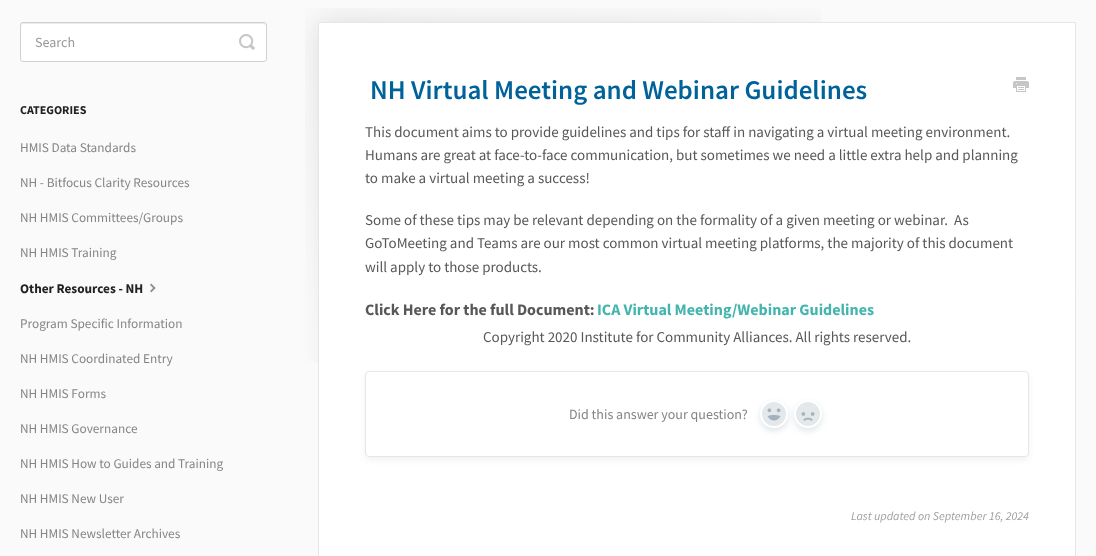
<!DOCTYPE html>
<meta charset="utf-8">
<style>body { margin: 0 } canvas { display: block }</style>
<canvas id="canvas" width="1096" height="556"></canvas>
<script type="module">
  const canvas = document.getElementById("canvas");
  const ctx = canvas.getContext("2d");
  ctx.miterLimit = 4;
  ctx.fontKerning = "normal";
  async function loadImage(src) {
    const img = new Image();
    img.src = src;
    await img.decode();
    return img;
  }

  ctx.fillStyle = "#fafafa";
  ctx.fillRect(0, 0, 1096, 556);
  ctx.fillStyle = "#ffffff";
  ctx.beginPath();
  ctx.roundRect(20, 22, 247, 40, 3);
  ctx.fill();
  ctx.fillStyle = "#ececec";
  ctx.beginPath();
  ctx.moveTo(23, 24);
  ctx.lineTo(264, 24);
  ctx.bezierCurveTo(265, 24, 266, 25, 266, 26);
  ctx.lineTo(266, 24);
  ctx.lineTo(264, 23);
  ctx.lineTo(23, 23);
  ctx.bezierCurveTo(21, 23, 21, 25, 21, 26);
  ctx.bezierCurveTo(21, 25, 22, 24, 23, 24);
  ctx.closePath();
  ctx.fill();
  ctx.beginPath();
  ctx.roundRect(20.5, 22.5, 246, 39, 2.5);
  ctx.strokeStyle = "#d0d0d0";
  ctx.stroke();
  ctx.font = "14px Source Sans Pro";
  ctx.fillStyle = "#999999";
  ctx.fillText("Search", 35, 47);
  ctx.drawImage(await loadImage("img1.png"), 239, 34, 16, 16);
  ctx.font = "bold 12px Source Sans Pro";
  ctx.fillStyle = "#222222";
  ctx.fillText("CATEGORIES", 20, 114);
  ctx.font = "13.25px Source Sans Pro";
  ctx.fillStyle = "#858585";
  ctx.fillText("HMIS Data Standards", 20, 152);
  ctx.fillText("NH - Bitfocus Clarity Resources", 20, 187);
  ctx.fillText("NH HMIS Committees/Groups", 20, 222);
  ctx.fillText("NH HMIS Training", 20, 257);
  ctx.font = "bold 13.25px Source Sans Pro";
  ctx.fillStyle = "#222222";
  ctx.fillText("Other Resources - NH", 20, 293);
  ctx.drawImage(await loadImage("img2.png"), 150, 283, 6, 10);
  ctx.font = "13.25px Source Sans Pro";
  ctx.fillStyle = "#858585";
  ctx.fillText("Program Specific Information", 20, 328);
  ctx.fillText("NH HMIS Coordinated Entry", 20, 363);
  ctx.fillText("NH HMIS Forms", 20, 398);
  ctx.fillText("NH HMIS Governance", 20, 433);
  ctx.fillText("NH HMIS How to Guides and Training", 20, 468);
  ctx.fillText("NH HMIS New User", 20, 503);
  ctx.fillText("NH HMIS Newsletter Archives", 20, 538);
  ctx.drawImage(await loadImage("img3.png"), 305, 8, 516, 354);
  ctx.fillStyle = "#ffffff";
  ctx.beginPath();
  ctx.rect(318.5, 22.5, 757, 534);
  ctx.fill();
  ctx.strokeStyle = "#e9e5e5";
  ctx.stroke();
  ctx.font = "600 27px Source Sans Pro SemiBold";
  ctx.fillStyle = "#00629b";
  ctx.fillText("NH Virtual Meeting and Webinar Guidelines", 370, 99);
  ctx.drawImage(await loadImage("img4.png"), 1013, 77, 16, 15);
  ctx.font = "15px Source Sans Pro";
  ctx.fillStyle = "#585858";
  ctx.fillText("This document aims to provide guidelines and tips for staff in navigating a virtual meeting environment.", 365, 137);
  ctx.fillText("Humans are great at face-to-face communication, but sometimes we need a little extra help and planning", 365, 160);
  ctx.fillText("to make a virtual meeting a success!", 365, 183);
  ctx.fillText("Some of these tips may be relevant depending on the formality of a given meeting or webinar.  As", 365, 225);
  ctx.fillText("GoToMeeting and Teams are our most common virtual meeting platforms, the majority of this document", 365, 248);
  ctx.fillText("will apply to those products.", 365, 272);
  ctx.font = "bold 16px Source Sans Pro";
  ctx.fillText("Click Here for the full Document:", 365, 315);
  ctx.fillStyle = "#43b5ae";
  ctx.fillText("ICA Virtual Meeting/Webinar Guidelines", 597, 315);
  ctx.font = "15px Source Sans Pro";
  ctx.fillStyle = "#585858";
  ctx.fillText("Copyright 2020 Institute for Community Alliances. All rights reserved.", 483, 342);
  ctx.fillStyle = "rgba(0, 0, 0, 0.05)";
  ctx.filter = "blur(3px)";
  ctx.beginPath();
  ctx.roundRect(365, 374, 664, 86, 4);
  ctx.fill();
  ctx.filter = "none";
  ctx.fillStyle = "#ffffff";
  ctx.beginPath();
  ctx.roundRect(365.5, 371.5, 663, 85, 3.5);
  ctx.fill();
  ctx.stroke();
  ctx.font = "14px Source Sans Pro";
  ctx.fillStyle = "#858585";
  ctx.fillText("Did this answer your question?", 569, 419);
  ctx.fillStyle = "rgba(193, 203, 212, 0.5)";
  ctx.filter = "blur(3px)";
  ctx.beginPath();
  ctx.roundRect(760, 403, 28, 28, 14);
  ctx.fill();
  ctx.filter = "none";
  ctx.fillStyle = "#e3e8eb";
  ctx.beginPath();
  ctx.arc(774, 414, 13, 0, Math.PI * 2);
  ctx.fill();
  ctx.strokeStyle = "#ffffff";
  ctx.lineWidth = 2;
  ctx.stroke();
  ctx.drawImage(await loadImage("img5.png"), 767, 408, 14, 13);
  ctx.fillStyle = "rgba(193, 203, 212, 0.5)";
  ctx.filter = "blur(3px)";
  ctx.beginPath();
  ctx.roundRect(794, 403, 28, 28, 14);
  ctx.fill();
  ctx.filter = "none";
  ctx.fillStyle = "#e3e8eb";
  ctx.beginPath();
  ctx.arc(808, 414, 13, 0, Math.PI * 2);
  ctx.fill();
  ctx.stroke();
  ctx.drawImage(await loadImage("img6.png"), 801, 412, 14, 9);
  ctx.font = "italic 12px Source Sans Pro";
  ctx.fillStyle = "#a0a0a0";
  ctx.fillText("Last updated on September 16, 2024", 851, 520);
</script>
